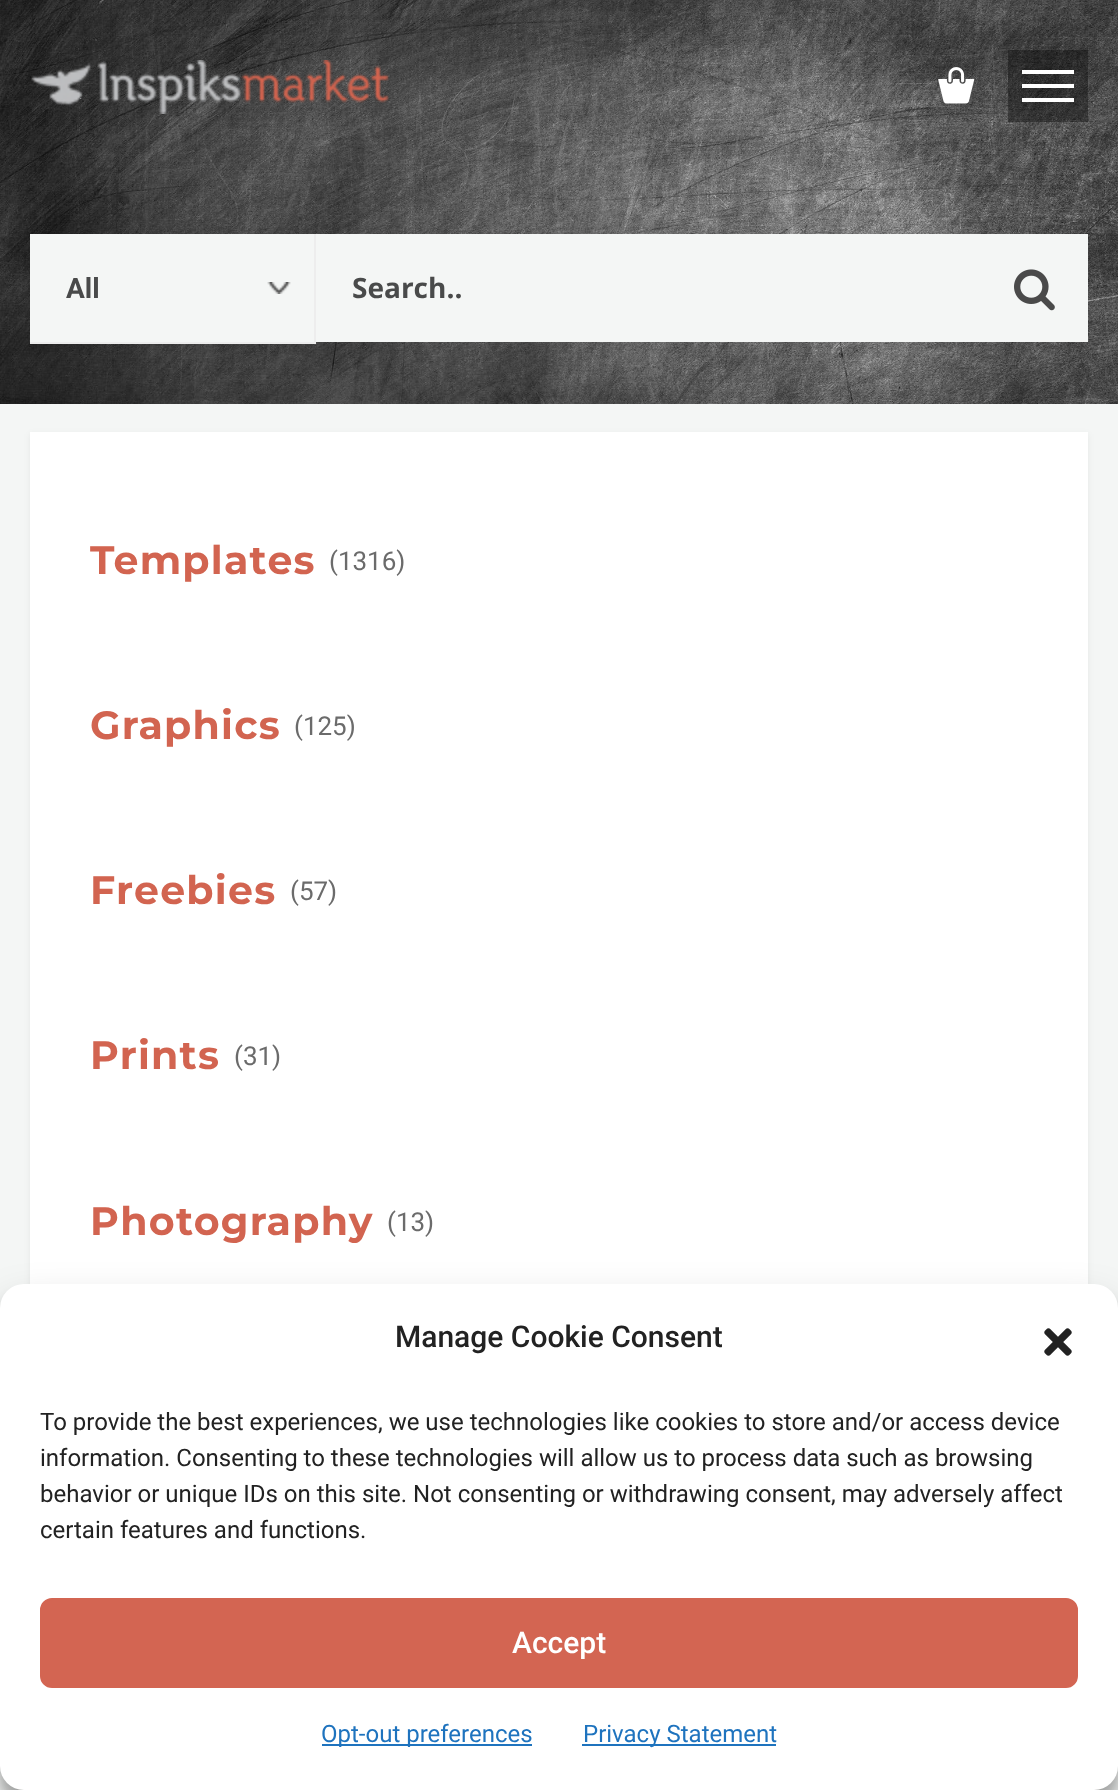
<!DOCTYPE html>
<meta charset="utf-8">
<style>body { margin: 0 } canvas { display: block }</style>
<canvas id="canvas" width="1118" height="1790"></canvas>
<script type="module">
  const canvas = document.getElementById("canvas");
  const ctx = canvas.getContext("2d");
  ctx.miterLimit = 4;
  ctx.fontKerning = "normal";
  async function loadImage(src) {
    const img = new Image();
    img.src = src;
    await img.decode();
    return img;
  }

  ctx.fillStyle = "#f4f6f5";
  ctx.fillRect(0, 0, 1118, 1790);
  ctx.drawImage(await loadImage("img1.png"), 0, 0, 1118, 404);
  ctx.drawImage(await loadImage("img2.png"), 31, 60, 358, 54);
  ctx.drawImage(await loadImage("img3.png"), 938, 67, 37, 37);
  ctx.fillStyle = "rgba(0, 0, 0, 0.35)";
  ctx.fillRect(1008, 50, 80, 72);
  ctx.fillStyle = "#ffffff";
  ctx.fillRect(1022, 70, 52, 4);
  ctx.fillRect(1022, 84, 52, 4);
  ctx.fillRect(1022, 98, 52, 4);
  ctx.fillStyle = "#f4f6f5";
  ctx.fillRect(30, 234, 284, 108);
  ctx.fillStyle = "#ededed";
  ctx.fillRect(314, 234, 2, 110);
  ctx.fillRect(30, 342, 286, 2);
  ctx.drawImage(await loadImage("img4.png"), 267, 282, 24, 12);
  ctx.font = "bold 28px Roboto";
  ctx.fillStyle = "#494a4a";
  ctx.fillText("All", 66, 298);
  ctx.fillStyle = "#f4f6f5";
  ctx.fillRect(316, 234, 772, 108);
  ctx.font = "bold 28px Open Sans";
  ctx.fillStyle = "#494a4a";
  ctx.fillText("Search..", 352, 298);
  ctx.drawImage(await loadImage("img5.png"), 1014, 269, 41, 42);
  ctx.fillStyle = "rgba(0, 0, 0, 0.06)";
  ctx.filter = "blur(3px)";
  ctx.beginPath();
  ctx.rect(30, 434, 1058, 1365);
  ctx.fill();
  ctx.filter = "none";
  ctx.fillStyle = "#ffffff";
  ctx.fillRect(30, 432, 1058, 852);
  ctx.letterSpacing = "1.25px";
  ctx.font = "bold 39.5px Montserrat";
  ctx.fillStyle = "#d26450";
  ctx.fillText("Templates", 90, 574);
  ctx.letterSpacing = "0px";
  ctx.font = "26px Roboto";
  ctx.fillStyle = "#6b6b6b";
  ctx.fillText("(1316)", 329, 570);
  ctx.letterSpacing = "1.25px";
  ctx.font = "bold 39.5px Montserrat";
  ctx.fillStyle = "#d26450";
  ctx.fillText("Graphics", 90, 739);
  ctx.letterSpacing = "0px";
  ctx.font = "26px Roboto";
  ctx.fillStyle = "#6b6b6b";
  ctx.fillText("(125)", 294, 735);
  ctx.letterSpacing = "1.25px";
  ctx.font = "bold 39.5px Montserrat";
  ctx.fillStyle = "#d26450";
  ctx.fillText("Freebies", 90, 904);
  ctx.letterSpacing = "0px";
  ctx.font = "26px Roboto";
  ctx.fillStyle = "#6b6b6b";
  ctx.fillText("(57)", 290, 900);
  ctx.letterSpacing = "1.25px";
  ctx.font = "bold 39.5px Montserrat";
  ctx.fillStyle = "#d26450";
  ctx.fillText("Prints", 90, 1069);
  ctx.letterSpacing = "0px";
  ctx.font = "26px Roboto";
  ctx.fillStyle = "#6b6b6b";
  ctx.fillText("(31)", 234, 1065);
  ctx.letterSpacing = "1.25px";
  ctx.font = "bold 39.5px Montserrat";
  ctx.fillStyle = "#d26450";
  ctx.fillText("Photography", 90, 1235);
  ctx.letterSpacing = "0px";
  ctx.font = "26px Roboto";
  ctx.fillStyle = "#6b6b6b";
  ctx.fillText("(13)", 387, 1231);
  ctx.fillStyle = "rgba(0, 0, 0, 0.23)";
  ctx.filter = "blur(6px)";
  ctx.beginPath();
  ctx.roundRect(0, 1296, 1118, 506, 24);
  ctx.fill();
  ctx.filter = "none";
  ctx.fillStyle = "rgba(0, 0, 0, 0.19)";
  ctx.filter = "blur(20px)";
  ctx.beginPath();
  ctx.roundRect(0, 1304, 1118, 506, 24);
  ctx.fill();
  ctx.filter = "none";
  ctx.fillStyle = "#ffffff";
  ctx.beginPath();
  ctx.roundRect(0, 1284, 1118, 506, 24);
  ctx.fill();
  ctx.font = "500 30px Roboto";
  ctx.fillStyle = "#222222";
  ctx.fillText("Manage Cookie Consent", 395, 1347);
  ctx.drawImage(await loadImage("img6.png"), 1044, 1328, 28, 28);
  ctx.font = "24px Roboto";
  ctx.fillText("To provide the best experiences, we use technologies like cookies to store and/or access device", 40, 1430);
  ctx.fillText("information. Consenting to these technologies will allow us to process data such as browsing", 40, 1466);
  ctx.fillText("behavior or unique IDs on this site. Not consenting or withdrawing consent, may adversely affect", 40, 1502);
  ctx.fillText("certain features and functions.", 40, 1538);
  ctx.fillStyle = "#d36552";
  ctx.beginPath();
  ctx.roundRect(41, 1599, 1036, 88, 11);
  ctx.fill();
  ctx.strokeStyle = "#d36552";
  ctx.lineWidth = 2;
  ctx.stroke();
  ctx.font = "500 30px Roboto";
  ctx.fillStyle = "#ffffff";
  ctx.fillText("Accept", 512, 1653);
  ctx.fillStyle = "#1e73be";
  ctx.fillRect(322, 1744, 210, 2);
  ctx.font = "24px Roboto";
  ctx.fillText("Opt-out preferences", 321, 1742);
  ctx.fillRect(582, 1744, 194, 2);
  ctx.fillText("Privacy Statement", 583, 1742);
</script>
